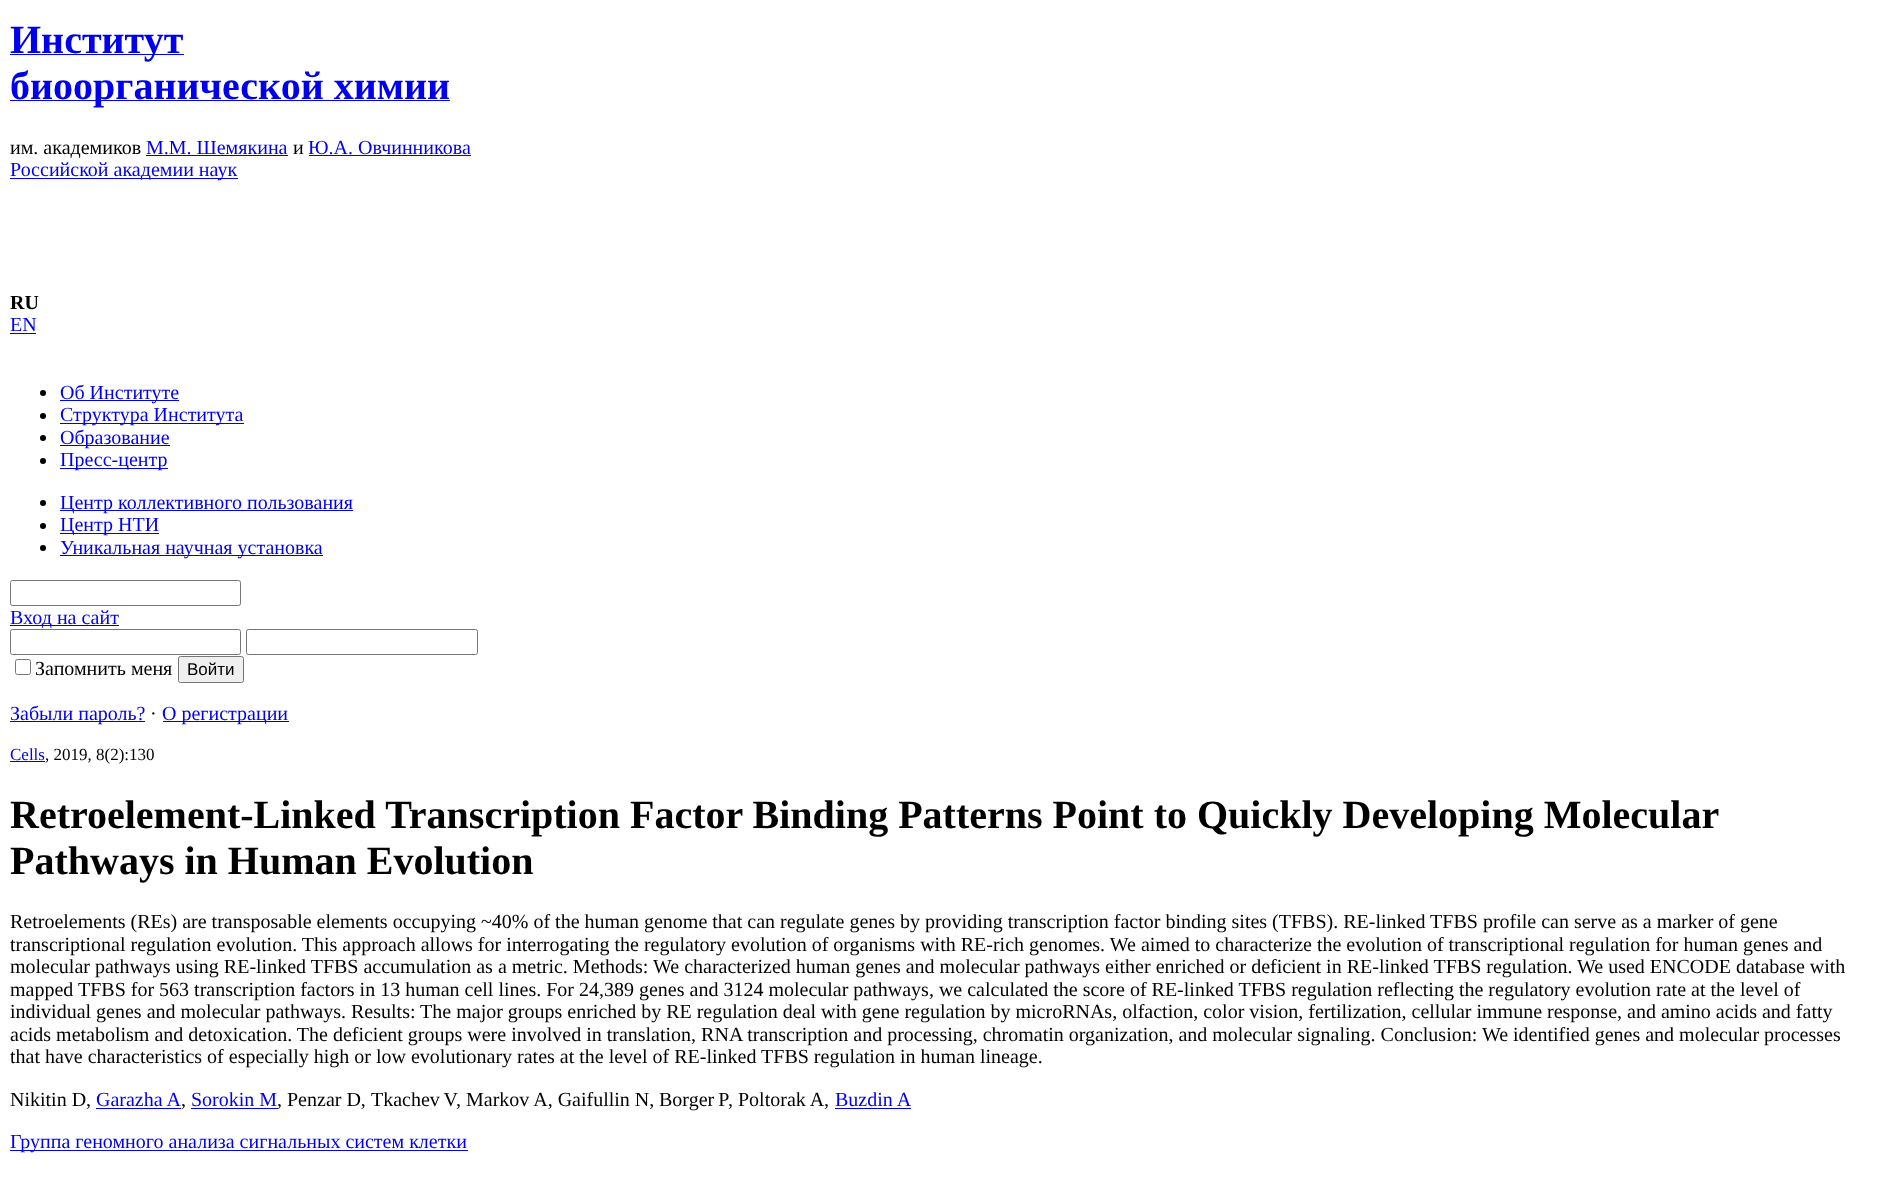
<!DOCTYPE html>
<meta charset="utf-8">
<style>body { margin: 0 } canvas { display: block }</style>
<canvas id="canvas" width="1885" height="1178"></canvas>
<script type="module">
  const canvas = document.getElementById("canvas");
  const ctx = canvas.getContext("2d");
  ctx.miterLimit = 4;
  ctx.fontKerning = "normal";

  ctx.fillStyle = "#ffffff";
  ctx.fillRect(0, 0, 1885, 1178);
  ctx.fillStyle = "#0000ee";
  ctx.fillRect(10, 54, 174, 1);
  ctx.font = "bold 40px Liberation Serif";
  ctx.fillText("Институт", 10, 53);
  ctx.fillRect(10, 100, 440, 1);
  ctx.fillText("биоорганической химии", 10, 99);
  ctx.font = "20px Liberation Serif";
  ctx.fillStyle = "#000000";
  ctx.fillText("им. академиков", 10, 154);
  ctx.fillStyle = "#0000ee";
  ctx.fillText("М.М. Шемякина", 146, 154);
  ctx.fillRect(146, 155, 142, 1);
  ctx.fillStyle = "#000000";
  ctx.fillText("и", 293, 154);
  ctx.fillStyle = "#0000ee";
  ctx.fillText("Ю.А. Овчинникова", 308, 154);
  ctx.fillRect(309, 155, 162, 1);
  ctx.fillRect(10, 178, 228, 1);
  ctx.fillText("Российской академии наук", 10, 176);
  ctx.font = "bold 20px Liberation Serif";
  ctx.fillStyle = "#000000";
  ctx.fillText("RU", 10, 309);
  ctx.font = "20px Liberation Serif";
  ctx.fillStyle = "#0000ee";
  ctx.fillText("EN", 10, 331);
  ctx.fillRect(10, 333, 26, 1);
  ctx.fillStyle = "#000000";
  ctx.beginPath();
  ctx.arc(43, 393, 3, 0, Math.PI * 2);
  ctx.fill();
  ctx.fillStyle = "#0000ee";
  ctx.fillRect(60, 400, 119, 1);
  ctx.fillText("Об Институте", 60, 399);
  ctx.fillStyle = "#000000";
  ctx.beginPath();
  ctx.arc(43, 416, 3, 0, Math.PI * 2);
  ctx.fill();
  ctx.fillStyle = "#0000ee";
  ctx.fillRect(60, 423, 184, 1);
  ctx.fillText("Структура Института", 60, 421);
  ctx.fillStyle = "#000000";
  ctx.beginPath();
  ctx.arc(43, 438, 3, 0, Math.PI * 2);
  ctx.fill();
  ctx.fillStyle = "#0000ee";
  ctx.fillRect(60, 445, 110, 1);
  ctx.fillText("Образование", 60, 444);
  ctx.fillStyle = "#000000";
  ctx.beginPath();
  ctx.arc(43, 461, 3, 0, Math.PI * 2);
  ctx.fill();
  ctx.fillStyle = "#0000ee";
  ctx.fillRect(60, 468, 108, 1);
  ctx.fillText("Пресс-центр", 60, 466);
  ctx.fillStyle = "#000000";
  ctx.beginPath();
  ctx.arc(43, 503, 3, 0, Math.PI * 2);
  ctx.fill();
  ctx.fillStyle = "#0000ee";
  ctx.fillRect(60, 510, 293, 1);
  ctx.fillText("Центр коллективного пользования", 60, 509);
  ctx.fillStyle = "#000000";
  ctx.beginPath();
  ctx.arc(43, 526, 3, 0, Math.PI * 2);
  ctx.fill();
  ctx.fillStyle = "#0000ee";
  ctx.fillRect(60, 533, 99, 1);
  ctx.fillText("Центр НТИ", 60, 531);
  ctx.fillStyle = "#000000";
  ctx.beginPath();
  ctx.arc(43, 548, 3, 0, Math.PI * 2);
  ctx.fill();
  ctx.fillStyle = "#0000ee";
  ctx.fillRect(60, 555, 263, 1);
  ctx.fillText("Уникальная научная установка", 60, 554);
  ctx.beginPath();
  ctx.roundRect(10.5, 580.5, 230, 25, 2);
  ctx.strokeStyle = "#767676";
  ctx.stroke();
  ctx.fillRect(10, 625, 109, 1);
  ctx.fillText("Вход на сайт", 10, 624);
  ctx.beginPath();
  ctx.roundRect(10.5, 629.5, 230, 25, 2);
  ctx.stroke();
  ctx.beginPath();
  ctx.roundRect(246.5, 629.5, 231, 25, 2);
  ctx.stroke();
  ctx.beginPath();
  ctx.roundRect(15.5, 659.5, 15, 15, 2);
  ctx.stroke();
  ctx.fillStyle = "#000000";
  ctx.fillText("Запомнить меня", 35, 675);
  ctx.fillStyle = "#efefef";
  ctx.beginPath();
  ctx.roundRect(178.5, 656.5, 65, 26, 2);
  ctx.fill();
  ctx.stroke();
  ctx.font = "17px Liberation Sans";
  ctx.fillStyle = "#000000";
  ctx.fillText("Войти", 187, 675);
  ctx.fillStyle = "#0000ee";
  ctx.fillRect(10, 721, 135, 1);
  ctx.font = "20px Liberation Serif";
  ctx.fillText("Забыли пароль?", 10, 720);
  ctx.fillStyle = "#000000";
  ctx.fillText("·", 150, 720);
  ctx.fillStyle = "#0000ee";
  ctx.fillRect(163, 721, 126, 1);
  ctx.fillText("О регистрации", 162, 720);
  ctx.font = "17px Liberation Serif";
  ctx.fillText("Cells", 10, 760);
  ctx.fillRect(10, 761, 35, 1);
  ctx.fillStyle = "#000000";
  ctx.fillText(", 2019, 8(2):130", 45, 760);
  ctx.font = "bold 40px Liberation Serif";
  ctx.fillText("Retroelement-Linked Transcription Factor Binding Patterns Point to Quickly Developing Molecular", 10, 828);
  ctx.fillText("Pathways in Human Evolution", 10, 874);
  ctx.font = "20px Liberation Serif";
  ctx.fillText("Retroelements (REs) are transposable elements occupying ~40% of the human genome that can regulate genes by providing transcription factor binding sites (TFBS). RE-linked TFBS profile can serve as a marker of gene", 10, 928);
  ctx.fillText("transcriptional regulation evolution. This approach allows for interrogating the regulatory evolution of organisms with RE-rich genomes. We aimed to characterize the evolution of transcriptional regulation for human genes and", 10, 951);
  ctx.fillText("molecular pathways using RE-linked TFBS accumulation as a metric. Methods: We characterized human genes and molecular pathways either enriched or deficient in RE-linked TFBS regulation. We used ENCODE database with", 10, 973);
  ctx.fillText("mapped TFBS for 563 transcription factors in 13 human cell lines. For 24,389 genes and 3124 molecular pathways, we calculated the score of RE-linked TFBS regulation reflecting the regulatory evolution rate at the level of", 10, 996);
  ctx.fillText("individual genes and molecular pathways. Results: The major groups enriched by RE regulation deal with gene regulation by microRNAs, olfaction, color vision, fertilization, cellular immune response, and amino acids and fatty", 10, 1018);
  ctx.fillText("acids metabolism and detoxication. The deficient groups were involved in translation, RNA transcription and processing, chromatin organization, and molecular signaling. Conclusion: We identified genes and molecular processes", 10, 1041);
  ctx.fillText("that have characteristics of especially high or low evolutionary rates at the level of RE-linked TFBS regulation in human lineage.", 10, 1063);
  ctx.fillText("Nikitin D,", 10, 1106);
  ctx.fillStyle = "#0000ee";
  ctx.fillText("Garazha A", 96, 1106);
  ctx.fillStyle = "#000000";
  ctx.fillText(",", 181, 1106);
  ctx.fillStyle = "#0000ee";
  ctx.fillRect(96, 1108, 85, 1);
  ctx.fillRect(191, 1108, 87, 1);
  ctx.fillText("Sorokin M", 191, 1106);
  ctx.fillStyle = "#000000";
  ctx.fillText(", Penzar D,", 277, 1106);
  ctx.wordSpacing = "-1px";
  ctx.fillText("Tkachev V", 371, 1106);
  ctx.wordSpacing = "0px";
  ctx.fillText(", Markov A, Gaifullin N,", 456, 1106);
  ctx.wordSpacing = "-1px";
  ctx.fillText("Borger P", 659, 1106);
  ctx.wordSpacing = "0px";
  ctx.fillText(", Poltorak A,", 728, 1106);
  ctx.fillStyle = "#0000ee";
  ctx.fillText("Buzdin A", 835, 1106);
  ctx.fillRect(835, 1108, 76, 1);
  ctx.fillRect(10, 1150, 458, 1);
  ctx.fillText("Группа геномного анализа сигнальных систем клетки", 10, 1148);
</script>
